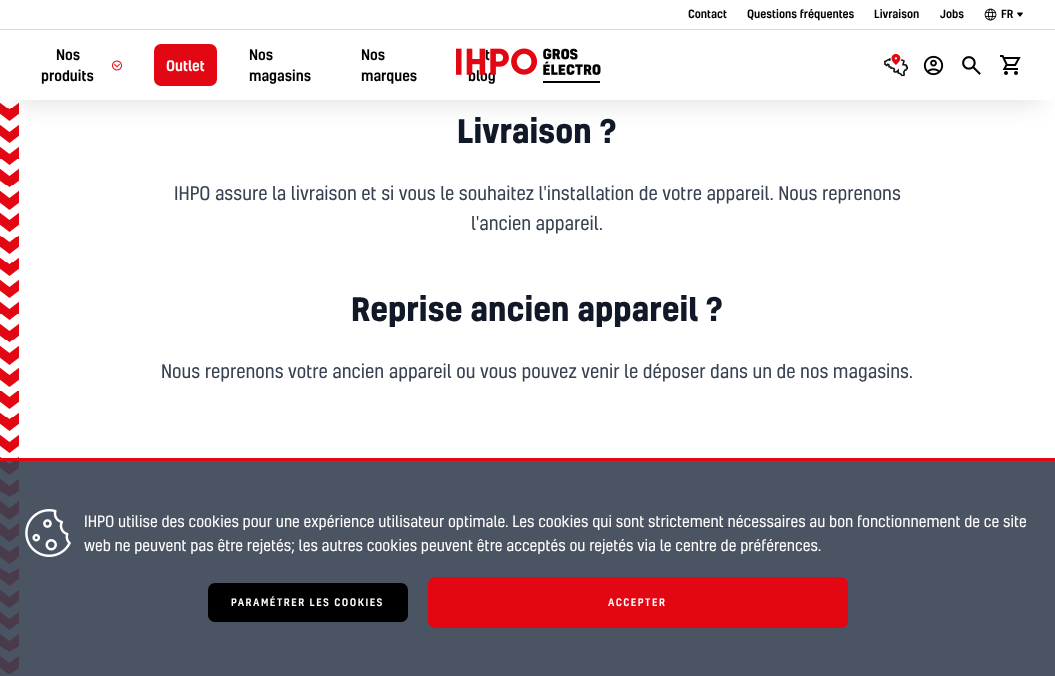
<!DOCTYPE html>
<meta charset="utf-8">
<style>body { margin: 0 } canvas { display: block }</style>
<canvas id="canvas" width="1055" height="676"></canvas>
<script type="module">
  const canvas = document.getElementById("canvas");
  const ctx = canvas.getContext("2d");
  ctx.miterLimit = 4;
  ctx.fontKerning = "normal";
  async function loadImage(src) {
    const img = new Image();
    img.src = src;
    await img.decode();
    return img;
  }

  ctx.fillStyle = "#ffffff";
  ctx.fillRect(0, 0, 1055, 676);
  ctx.drawImage(await loadImage("img1.png"), 0, 92, 19, 582);
  ctx.fillStyle = "rgba(0, 0, 0, 0.14)";
  ctx.filter = "blur(14px)";
  ctx.beginPath();
  ctx.rect(15, 31, 1025, 70);
  ctx.fill();
  ctx.filter = "none";
  ctx.fillStyle = "#ffffff";
  ctx.beginPath();
  ctx.roundRect(0, 0, 1055, 100, [0, 0, 8, 8]);
  ctx.fill();
  ctx.fillStyle = "#d9d9d9";
  ctx.fillRect(0, 29, 1055, 1);
  ctx.font = "500 11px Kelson";
  ctx.fillStyle = "#000000";
  ctx.fillText("Contact", 688, 18);
  ctx.fillText("Questions fréquentes", 747, 18);
  ctx.fillText("Livraison", 874, 18);
  ctx.fillText("Jobs", 940, 18);
  ctx.drawImage(await loadImage("img2.png"), 984, 8, 13, 13);
  ctx.fillText("FR", 1001, 18);
  ctx.drawImage(await loadImage("img3.png"), 1017, 12, 6, 5);
  ctx.font = "500 14px Kelson";
  ctx.fillText("Nos", 56, 60);
  ctx.fillText("produits", 41, 81);
  ctx.drawImage(await loadImage("img4.png"), 112, 60, 10, 11);
  ctx.fillStyle = "#e30713";
  ctx.beginPath();
  ctx.roundRect(154, 44, 63, 42, 7);
  ctx.fill();
  ctx.fillStyle = "#ffffff";
  ctx.fillText("Outlet", 166, 71);
  ctx.fillStyle = "#000000";
  ctx.fillText("Nos", 249, 60);
  ctx.fillText("magasins", 249, 81);
  ctx.fillText("Nos", 361, 60);
  ctx.fillText("marques", 361, 81);
  ctx.fillText("t", 485, 60);
  ctx.fillText("blog", 468, 81);
  ctx.drawImage(await loadImage("img5.png"), 456, 48, 145, 35);
  ctx.drawImage(await loadImage("img6.png"), 884, 54, 24, 23);
  ctx.drawImage(await loadImage("img7.png"), 923, 55, 21, 21);
  ctx.drawImage(await loadImage("img8.png"), 962, 56, 19, 19);
  ctx.drawImage(await loadImage("img9.png"), 1000, 55, 21, 20);
  ctx.font = "bold 31.25px Kelson";
  ctx.fillStyle = "#111827";
  ctx.fillText("Livraison ?", 457, 143);
  ctx.font = "18px Kelson";
  ctx.fillStyle = "#374151";
  ctx.fillText("IHPO assure la livraison et si vous le souhaitez l'installation de votre appareil. Nous reprenons", 174, 200);
  ctx.fillText("l'ancien appareil.", 471, 230);
  ctx.font = "bold 31.25px Kelson";
  ctx.fillStyle = "#111827";
  ctx.fillText("Reprise ancien appareil ?", 351, 321);
  ctx.font = "18px Kelson";
  ctx.fillStyle = "#374151";
  ctx.fillText("Nous reprenons votre ancien appareil ou vous pouvez venir le déposer dans un de nos magasins.", 161, 378);
  ctx.fillStyle = "#e30713";
  ctx.fillRect(653, 527, 77, 1);
  ctx.fillStyle = "rgba(55, 65, 81, 0.9)";
  ctx.fillRect(0, 461, 1055, 215);
  ctx.fillStyle = "#e30713";
  ctx.fillRect(0, 458, 1055, 3);
  ctx.drawImage(await loadImage("img10.png"), 25, 509, 46, 48);
  ctx.font = "15px Kelson";
  ctx.fillStyle = "#ffffff";
  ctx.fillText("IHPO utilise des cookies pour une expérience utilisateur optimale. Les cookies qui sont strictement nécessaires au bon fonctionnement de ce site", 84, 527);
  ctx.fillText("web ne peuvent pas être rejetés; les autres cookies peuvent être acceptés ou rejetés via le centre de préférences.", 84, 551);
  ctx.fillStyle = "#000000";
  ctx.beginPath();
  ctx.roundRect(208, 583, 200, 39, 7);
  ctx.fill();
  ctx.letterSpacing = "1.5px";
  ctx.font = "500 10px Kelson";
  ctx.fillStyle = "#ffffff";
  ctx.fillText("PARAMÉTRER LES COOKIES", 231, 606);
  ctx.fillStyle = "#e30713";
  ctx.beginPath();
  ctx.roundRect(428, 577, 420, 51, 7);
  ctx.fill();
  ctx.fillStyle = "#ffffff";
  ctx.fillText("ACCEPTER", 608, 606);
</script>
